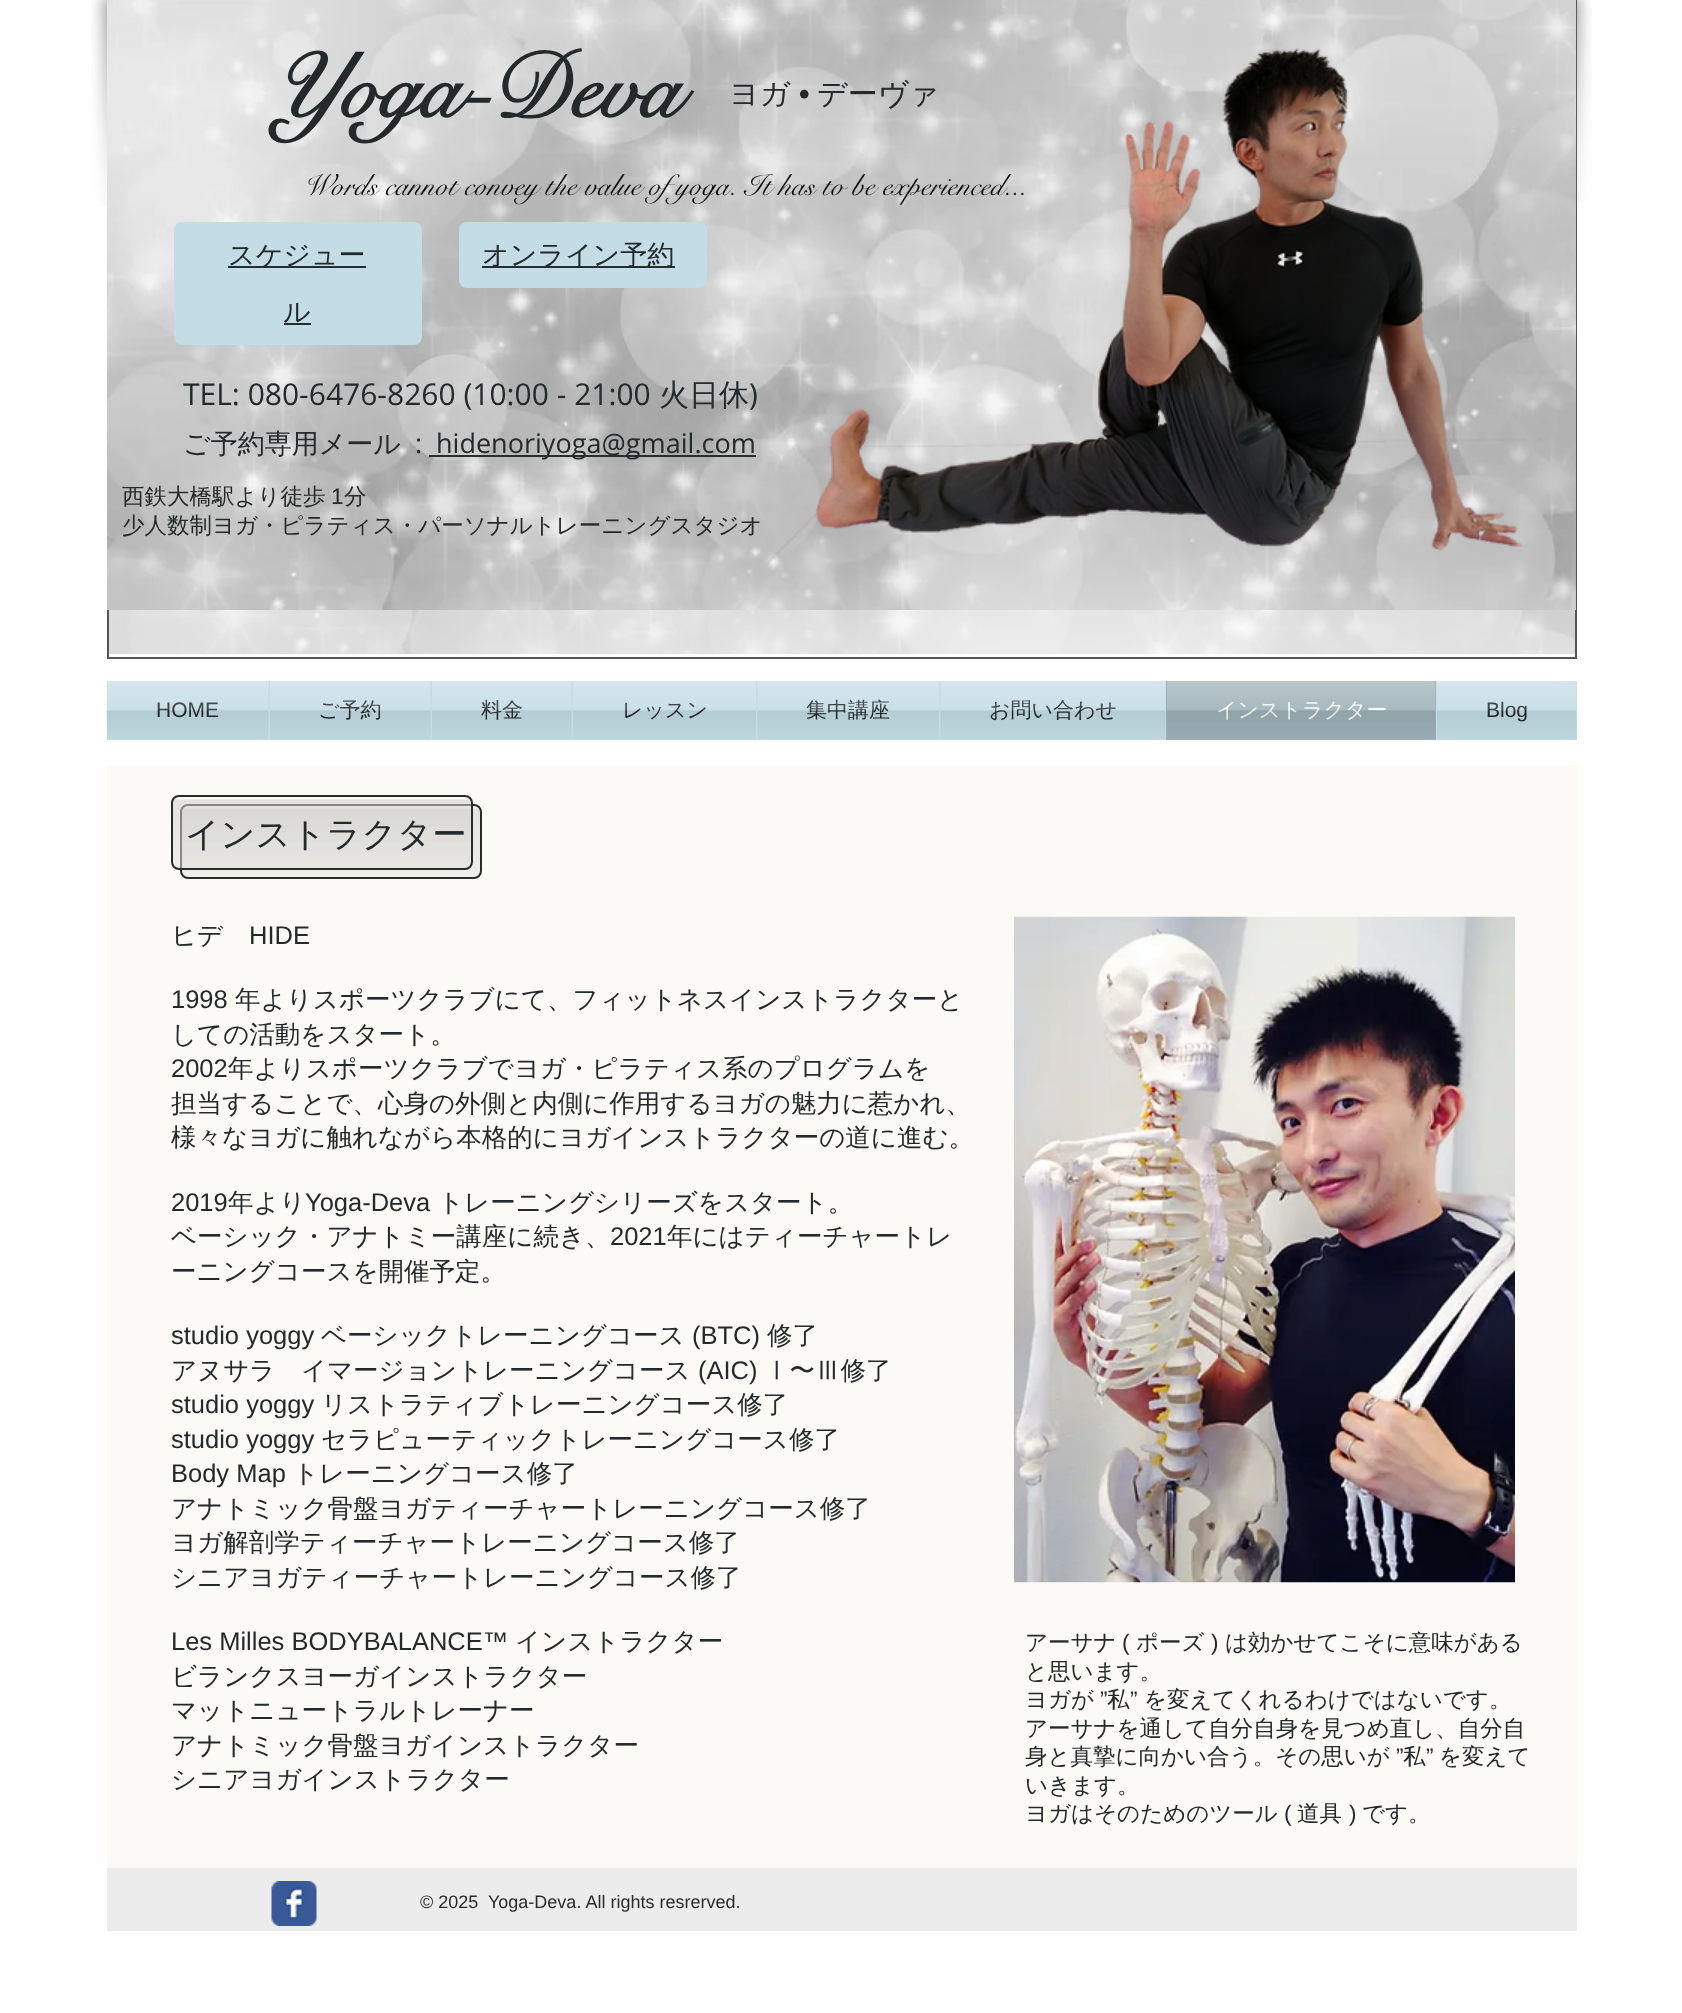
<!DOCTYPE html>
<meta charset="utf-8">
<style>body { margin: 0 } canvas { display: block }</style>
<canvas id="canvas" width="1682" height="2013"></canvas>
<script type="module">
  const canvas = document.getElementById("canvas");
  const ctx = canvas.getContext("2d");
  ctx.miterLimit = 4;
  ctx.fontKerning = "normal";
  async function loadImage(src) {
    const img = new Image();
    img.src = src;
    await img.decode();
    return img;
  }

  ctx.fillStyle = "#ffffff";
  ctx.fillRect(0, 0, 1682, 2013);
  ctx.drawImage(await loadImage("img1.png"), 91, 0, 16, 206);
  ctx.drawImage(await loadImage("img14.png"), 109, 610, 1466, 44);
  ctx.fillStyle = "rgba(255, 255, 255, 0.47)";
  ctx.fillRect(109, 610, 1466, 44);
  ctx.strokeStyle = "#555555";
  ctx.lineWidth = 2;
  ctx.strokeRect(108, 1, 1468, 657);
  ctx.drawImage(await loadImage("img2.png"), 1577, 0, 15, 202);
  ctx.drawImage(await loadImage("img3.png"), 107, 0, 1470, 610);
  ctx.font = "bold 90px 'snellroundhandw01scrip'";
  ctx.fillStyle = "#24292b";
  ctx.fillText("Yoga-Deva", 270, 117);
  ctx.font = "500 30px WenQuanYi Zen Hei";
  ctx.fillText("ヨガ", 729, 104);
  ctx.font = "bold 30px Liberation Sans";
  ctx.fillText("•", 799, 104);
  ctx.font = "500 30px WenQuanYi Zen Hei";
  ctx.fillText("デーヴァ", 817, 104);
  ctx.font = "30px 'snellroundhandw01scrip'";
  ctx.fillStyle = "#000000";
  ctx.fillText("Words cannot convey the value of yoga. It has to be experienced...", 303, 195);
  ctx.drawImage(await loadImage("img4.png"), 767, 48, 775, 518);
  ctx.fillStyle = "#c3dce5";
  ctx.beginPath();
  ctx.roundRect(174, 222, 248, 123, 8);
  ctx.fill();
  ctx.fillStyle = "#272c2d";
  ctx.fillRect(228, 266, 138, 2);
  ctx.font = "500 27px WenQuanYi Zen Hei";
  ctx.fillStyle = "#24292b";
  ctx.fillText("スケジュー", 228, 264);
  ctx.fillText("ル", 283, 321);
  ctx.fillStyle = "#272c2d";
  ctx.fillRect(284, 323, 27, 2);
  ctx.fillStyle = "#c3dce5";
  ctx.beginPath();
  ctx.roundRect(459, 222, 248, 66, 8);
  ctx.fill();
  ctx.fillStyle = "#272c2d";
  ctx.fillRect(482, 266, 193, 2);
  ctx.fillStyle = "#24292b";
  ctx.fillText("オンライン予約", 482, 264);
  ctx.font = "30px Open Sans";
  ctx.fillText("TEL: 080-6476-8260 (10:00 - 21:00", 183, 405);
  ctx.font = "500 30px WenQuanYi Zen Hei";
  ctx.fillText("火日休", 659, 405);
  ctx.font = "30px Open Sans";
  ctx.fillText(")", 749, 405);
  ctx.font = "500 27px WenQuanYi Zen Hei";
  ctx.fillText("ご予約専用メール", 183, 453);
  ctx.font = "27px Open Sans";
  ctx.fillText(":", 415, 453);
  ctx.fillStyle = "#272c2d";
  ctx.fillRect(429, 455, 327, 2);
  ctx.fillStyle = "#24292b";
  ctx.fillText("hidenoriyoga@gmail.com", 436, 453);
  ctx.font = "500 22.5px WenQuanYi Zen Hei";
  ctx.fillText("西鉄大橋駅より徒歩", 122, 504);
  ctx.font = "22.5px Liberation Sans";
  ctx.fillText("1", 331, 504);
  ctx.font = "500 22.5px WenQuanYi Zen Hei";
  ctx.fillText("分", 344, 504);
  ctx.fillText("少人数制ヨガ・ピラティス・パーソナルトレーニングスタジオ", 122, 533);
  ctx.drawImage(await loadImage("img5.png"), 106, 681, 1, 47);
  ctx.fillStyle = "#c3dce5";
  ctx.fillRect(107, 681, 1059, 59);
  ctx.font = "21px Liberation Sans";
  ctx.fillStyle = "#24292b";
  ctx.fillText("HOME", 156, 717);
  ctx.drawImage(await loadImage("img6.png"), 106, 681, 163, 58);
  ctx.font = "500 21px WenQuanYi Zen Hei";
  ctx.fillText("ご予約", 318, 717);
  ctx.drawImage(await loadImage("img7.png"), 270, 681, 161, 58);
  ctx.fillText("料金", 481, 717);
  ctx.drawImage(await loadImage("img8.png"), 432, 681, 140, 58);
  ctx.fillText("レッスン", 622, 717);
  ctx.drawImage(await loadImage("img9.png"), 573, 681, 183, 58);
  ctx.fillText("集中講座", 806, 717);
  ctx.drawImage(await loadImage("img10.png"), 757, 681, 182, 58);
  ctx.fillText("お問い合わせ", 989, 717);
  ctx.drawImage(await loadImage("img11.png"), 940, 681, 226, 58);
  ctx.fillStyle = "#9cb0b7";
  ctx.fillRect(1166, 681, 270, 59);
  ctx.fillStyle = "#f9f8f3";
  ctx.fillText("インストラクター", 1216, 717);
  ctx.drawImage(await loadImage("img12.png"), 1167, 681, 269, 58);
  ctx.fillStyle = "#c3dce5";
  ctx.fillRect(1436, 681, 141, 59);
  ctx.font = "21px Liberation Sans";
  ctx.fillStyle = "#24292b";
  ctx.fillText("Blog", 1486, 717);
  ctx.drawImage(await loadImage("img13.png"), 1437, 681, 140, 58);
  ctx.fillStyle = "#fbfaf7";
  ctx.fillRect(107, 765, 1470, 1103);
  ctx.drawImage(await loadImage("img16.png"), 180, 808, 301, 71);
  ctx.beginPath();
  ctx.roundRect(181, 805, 300, 73, 7);
  ctx.strokeStyle = "#272c2d";
  ctx.stroke();
  ctx.fillStyle = "rgba(249, 248, 243, 0.51)";
  ctx.beginPath();
  ctx.roundRect(171, 795, 302, 75, 8);
  ctx.fill();
  ctx.drawImage(await loadImage("img15.png"), 171, 799, 301, 71);
  ctx.beginPath();
  ctx.roundRect(172, 796, 300, 73, 7);
  ctx.stroke();
  ctx.font = "500 34.5px WenQuanYi Zen Hei";
  ctx.fillStyle = "#24292b";
  ctx.fillText("インストラクター", 185, 846);
  ctx.font = "500 25.5px WenQuanYi Zen Hei";
  ctx.fillText("ヒデ", 171, 944);
  ctx.font = "25.5px Liberation Sans";
  ctx.fillText("HIDE", 249, 944);
  ctx.fillText("1998", 171, 1008);
  ctx.font = "500 25.5px WenQuanYi Zen Hei";
  ctx.fillText("年よりスポーツクラブにて、フィットネスインストラクターと", 235, 1008);
  ctx.fillText("しての活動をスタート。", 171, 1043);
  ctx.font = "25.5px Liberation Sans";
  ctx.fillText("2002", 171, 1077);
  ctx.font = "500 25.5px WenQuanYi Zen Hei";
  ctx.fillText("年よりスポーツクラブでヨガ・ピラティス系のプログラムを", 228, 1077);
  ctx.fillText("担当することで、心身の外側と内側に作用するヨガの魅力に惹かれ、", 171, 1112);
  ctx.fillText("様々なヨガに触れながら本格的にヨガインストラクターの道に進む。", 171, 1146);
  ctx.font = "25.5px Liberation Sans";
  ctx.fillText("2019", 171, 1211);
  ctx.font = "500 25.5px WenQuanYi Zen Hei";
  ctx.fillText("年より", 228, 1211);
  ctx.font = "25.5px Liberation Sans";
  ctx.fillText("Yoga-Deva", 305, 1211);
  ctx.font = "500 25.5px WenQuanYi Zen Hei";
  ctx.fillText("トレーニングシリーズをスタート。", 438, 1211);
  ctx.fillText("ベーシック・アナトミー講座に続き、", 171, 1245);
  ctx.font = "25.5px Liberation Sans";
  ctx.fillText("2021", 610, 1245);
  ctx.font = "500 25.5px WenQuanYi Zen Hei";
  ctx.fillText("年にはティーチャートレ", 667, 1245);
  ctx.fillText("ーニングコースを開催予定。", 171, 1280);
  ctx.font = "25.5px Liberation Sans";
  ctx.fillText("studio yoggy", 171, 1344);
  ctx.font = "500 25.5px WenQuanYi Zen Hei";
  ctx.fillText("ベーシックトレーニングコース", 321, 1344);
  ctx.font = "25.5px Liberation Sans";
  ctx.fillText("(BTC)", 692, 1344);
  ctx.font = "500 25.5px WenQuanYi Zen Hei";
  ctx.fillText("修了", 767, 1344);
  ctx.fillText("アヌサラ　イマージョントレーニングコース", 171, 1379);
  ctx.font = "25.5px Liberation Sans";
  ctx.fillText("(AIC)", 698, 1379);
  ctx.font = "500 25.5px WenQuanYi Zen Hei";
  ctx.fillText("Ⅰ〜Ⅲ修了", 764, 1379);
  ctx.font = "25.5px Liberation Sans";
  ctx.fillText("studio yoggy", 171, 1413);
  ctx.font = "500 25.5px WenQuanYi Zen Hei";
  ctx.fillText("リストラティブトレーニングコース修了", 321, 1413);
  ctx.font = "25.5px Liberation Sans";
  ctx.fillText("studio yoggy", 171, 1448);
  ctx.font = "500 25.5px WenQuanYi Zen Hei";
  ctx.fillText("セラピューティックトレーニングコース修了", 321, 1448);
  ctx.font = "25.5px Liberation Sans";
  ctx.fillText("Body Map", 171, 1482);
  ctx.font = "500 25.5px WenQuanYi Zen Hei";
  ctx.fillText("トレーニングコース修了", 293, 1482);
  ctx.fillText("アナトミック骨盤ヨガティーチャートレーニングコース修了", 171, 1517);
  ctx.fillText("ヨガ解剖学ティーチャートレーニングコース修了", 171, 1551);
  ctx.fillText("シニアヨガティーチャートレーニングコース修了", 171, 1586);
  ctx.font = "25.5px Liberation Sans";
  ctx.fillText("Les Milles BODYBALANCE™", 171, 1650);
  ctx.font = "500 25.5px WenQuanYi Zen Hei";
  ctx.fillText("インストラクター", 515, 1650);
  ctx.fillText("ビランクスヨーガインストラクター", 171, 1685);
  ctx.fillText("マットニュートラルトレーナー", 171, 1719);
  ctx.fillText("アナトミック骨盤ヨガインストラクター", 171, 1754);
  ctx.fillText("シニアヨガインストラクター", 171, 1788);
  ctx.drawImage(await loadImage("img17.png"), 1014, 916, 501, 667);
  ctx.font = "500 22.5px WenQuanYi Zen Hei";
  ctx.fillText("アーサナ", 1025, 1650);
  ctx.font = "22.5px Liberation Sans";
  ctx.fillText("(", 1122, 1650);
  ctx.font = "500 22.5px WenQuanYi Zen Hei";
  ctx.fillText("ポーズ", 1136, 1650);
  ctx.font = "22.5px Liberation Sans";
  ctx.fillText(")", 1211, 1650);
  ctx.font = "500 22.5px WenQuanYi Zen Hei";
  ctx.fillText("は効かせてこそに意味がある", 1225, 1650);
  ctx.fillText("と思います。", 1025, 1679);
  ctx.fillText("ヨガが", 1025, 1707);
  ctx.font = "22.5px Liberation Sans";
  ctx.fillText("”", 1100, 1707);
  ctx.font = "500 22.5px WenQuanYi Zen Hei";
  ctx.fillText("私", 1107, 1707);
  ctx.font = "22.5px Liberation Sans";
  ctx.fillText("”", 1130, 1707);
  ctx.font = "500 22.5px WenQuanYi Zen Hei";
  ctx.fillText("を変えてくれるわけではないです。", 1144, 1707);
  ctx.fillText("アーサナを通して自分自身を見つめ直し、自分自", 1025, 1736);
  ctx.fillText("身と真摯に向かい合う。その思いが", 1025, 1764);
  ctx.font = "22.5px Liberation Sans";
  ctx.fillText("”", 1396, 1764);
  ctx.font = "500 22.5px WenQuanYi Zen Hei";
  ctx.fillText("私", 1403, 1764);
  ctx.font = "22.5px Liberation Sans";
  ctx.fillText("”", 1426, 1764);
  ctx.font = "500 22.5px WenQuanYi Zen Hei";
  ctx.fillText("を変えて", 1439, 1764);
  ctx.fillText("いきます。", 1025, 1793);
  ctx.fillText("ヨガはそのためのツール", 1025, 1821);
  ctx.font = "22.5px Liberation Sans";
  ctx.fillText("(", 1284, 1821);
  ctx.font = "500 22.5px WenQuanYi Zen Hei";
  ctx.fillText("道具", 1297, 1821);
  ctx.font = "22.5px Liberation Sans";
  ctx.fillText(")", 1349, 1821);
  ctx.font = "500 22.5px WenQuanYi Zen Hei";
  ctx.fillText("です。", 1362, 1821);
  ctx.fillStyle = "#ececec";
  ctx.fillRect(107, 1868, 1470, 63);
  ctx.drawImage(await loadImage("img18.png"), 271, 1881, 46, 45);
  ctx.font = "18px Liberation Sans";
  ctx.fillStyle = "#2a2a2a";
  ctx.fillText("© 2025  Yoga-Deva. All rights resrerved.", 420, 1908);
</script>
